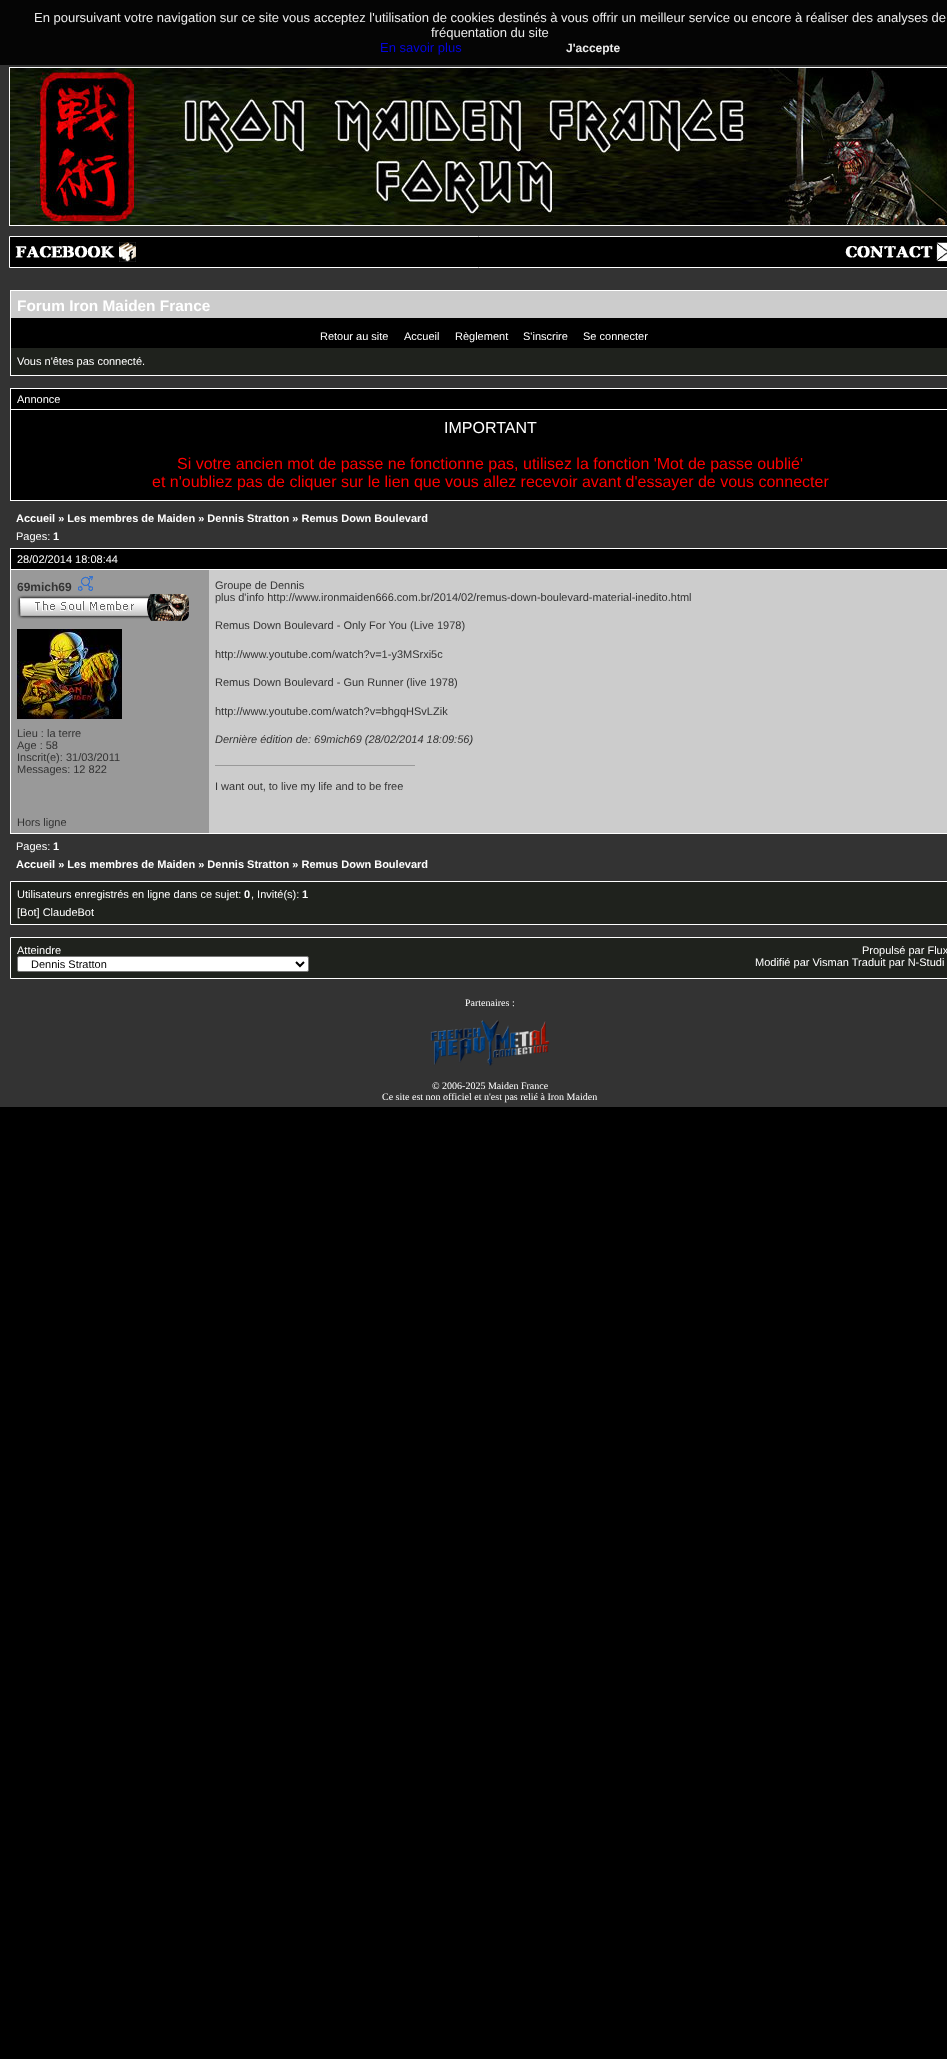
<!DOCTYPE html>
<meta charset="utf-8">
<style>body { margin: 0 } canvas { display: block }</style>
<canvas id="canvas" width="947" height="2059"></canvas>
<script type="module">
  const canvas = document.getElementById("canvas");
  const ctx = canvas.getContext("2d");
  ctx.miterLimit = 4;
  ctx.fontKerning = "normal";
  async function loadImage(src) {
    const img = new Image();
    img.src = src;
    await img.decode();
    return img;
  }

  ctx.fillStyle = "#000000";
  ctx.fillRect(0, 0, 947, 2059);
  ctx.fillStyle = "#333333";
  ctx.fillRect(0, 65, 947, 1042);
  ctx.fillStyle = "#050505";
  ctx.fillRect(0, 0, 947, 65);
  ctx.font = "13px Liberation Sans";
  ctx.fillStyle = "#ebebeb";
  ctx.fillText("En poursuivant votre navigation sur ce site vous acceptez l'utilisation de cookies destinés à vous offrir un meilleur service ou encore à réaliser des analyses de", 34, 22);
  ctx.fillText("fréquentation du site", 431, 37);
  ctx.fillStyle = "#0505db";
  ctx.fillText("En savoir plus", 380, 52);
  ctx.font = "bold 12px Liberation Sans";
  ctx.fillStyle = "#ebebeb";
  ctx.fillText("J'accepte", 566, 52);
  ctx.drawImage(await loadImage("img1.png"), 10, 68, 937, 157);
  ctx.strokeStyle = "#ffffff";
  ctx.strokeRect(9.5, 67.5, 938, 158);
  ctx.fillStyle = "#000000";
  ctx.beginPath();
  ctx.rect(9.5, 236.5, 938, 31);
  ctx.fill();
  ctx.stroke();
  ctx.drawImage(await loadImage("img2.png"), 15, 242, 121, 20);
  ctx.drawImage(await loadImage("img3.png"), 845, 242, 102, 20);
  ctx.fillStyle = "#cccccc";
  ctx.fillRect(11, 291, 936, 27);
  ctx.strokeRect(10.5, 290.5, 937, 85);
  ctx.font = "bold 15.4px Liberation Sans";
  ctx.fillStyle = "#ffffff";
  ctx.fillText("Forum Iron Maiden France", 17, 311);
  ctx.fillStyle = "#000000";
  ctx.fillRect(11, 318, 936, 30);
  ctx.font = "11px Liberation Sans";
  ctx.fillStyle = "#ffffff";
  ctx.fillText("Retour au site", 320, 340);
  ctx.fillText("Accueil", 404, 340);
  ctx.fillText("Règlement", 455, 340);
  ctx.fillText("S'inscrire", 523, 340);
  ctx.fillText("Se connecter", 583, 340);
  ctx.fillStyle = "#1f221d";
  ctx.fillRect(11, 348, 936, 27);
  ctx.fillStyle = "#ffffff";
  ctx.fillText("Vous n'êtes pas connecté.", 17, 365);
  ctx.fillStyle = "#000000";
  ctx.fillRect(11, 389, 936, 20);
  ctx.fillStyle = "#ffffff";
  ctx.fillRect(10, 388, 937, 1);
  ctx.fillRect(10, 388, 1, 21);
  ctx.fillText("Annonce", 17, 403);
  ctx.strokeRect(10.5, 409.5, 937, 91);
  ctx.fillStyle = "#000000";
  ctx.fillRect(11, 410, 936, 90);
  ctx.font = "16px Liberation Sans";
  ctx.fillStyle = "#ffffff";
  ctx.fillText("IMPORTANT", 444, 433);
  ctx.fillStyle = "#ff0000";
  ctx.fillText("Si votre ancien mot de passe ne fonctionne pas, utilisez la fonction 'Mot de passe oublié'", 177, 469);
  ctx.fillText("et n'oubliez pas de cliquer sur le lien que vous allez recevoir avant d'essayer de vous connecter", 152, 487);
  ctx.font = "bold 11px Liberation Sans";
  ctx.fillStyle = "#ffffff";
  ctx.fillText("Accueil » Les membres de Maiden » Dennis Stratton » Remus Down Boulevard", 16, 522);
  ctx.font = "11px Liberation Sans";
  ctx.fillText("Pages:", 16, 540);
  ctx.font = "bold 11px Liberation Sans";
  ctx.fillText("1", 53, 540);
  ctx.fillStyle = "#000000";
  ctx.fillRect(11, 549, 936, 20);
  ctx.fillStyle = "#ffffff";
  ctx.fillRect(10, 548, 937, 1);
  ctx.fillRect(10, 548, 1, 21);
  ctx.font = "11px Liberation Sans";
  ctx.fillText("28/02/2014 18:08:44", 17, 563);
  ctx.fillStyle = "#cccccc";
  ctx.fillRect(209, 570, 738, 263);
  ctx.strokeRect(10.5, 569.5, 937, 264);
  ctx.fillStyle = "#999999";
  ctx.fillRect(11, 570, 198, 263);
  ctx.font = "bold 12px Liberation Sans";
  ctx.fillStyle = "#333333";
  ctx.fillText("69mich69", 17, 591);
  ctx.drawImage(await loadImage("img4.png"), 78, 576, 15, 15);
  ctx.drawImage(await loadImage("img5.png"), 17, 594, 172, 27);
  ctx.drawImage(await loadImage("img6.png"), 17, 629, 105, 90);
  ctx.font = "11px Liberation Sans";
  ctx.fillText("Lieu : la terre", 17, 737);
  ctx.fillText("Age : 58", 17, 749);
  ctx.fillText("Inscrit(e): 31/03/2011", 17, 761);
  ctx.fillText("Messages: 12 822", 17, 773);
  ctx.fillText("Groupe de Dennis", 215, 589);
  ctx.fillText("plus d'info http://www.ironmaiden666.com.br/2014/02/remus-down-boulevard-material-inedito.html", 215, 601);
  ctx.fillText("Remus Down Boulevard - Only For You (Live 1978)", 215, 629);
  ctx.fillText("http://www.youtube.com/watch?v=1-y3MSrxi5c", 215, 658);
  ctx.fillText("Remus Down Boulevard - Gun Runner (live 1978)", 215, 686);
  ctx.fillText("http://www.youtube.com/watch?v=bhgqHSvLZik", 215, 715);
  ctx.font = "italic 11px Liberation Sans";
  ctx.fillText("Dernière édition de: 69mich69 (28/02/2014 18:09:56)", 215, 743);
  ctx.fillStyle = "#999999";
  ctx.fillRect(215, 765, 200, 1);
  ctx.font = "11px Liberation Sans";
  ctx.fillStyle = "#333333";
  ctx.fillText("I want out, to live my life and to be free", 215, 790);
  ctx.fillText("Hors ligne", 17, 826);
  ctx.fillStyle = "#ffffff";
  ctx.fillText("Pages:", 16, 850);
  ctx.font = "bold 11px Liberation Sans";
  ctx.fillText("1", 53, 850);
  ctx.fillText("Accueil » Les membres de Maiden » Dennis Stratton » Remus Down Boulevard", 16, 868);
  ctx.fillStyle = "#1f221d";
  ctx.beginPath();
  ctx.rect(10.5, 881.5, 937, 43);
  ctx.fill();
  ctx.stroke();
  ctx.font = "11px Liberation Sans";
  ctx.fillStyle = "#ffffff";
  ctx.fillText("Utilisateurs enregistrés en ligne dans ce sujet:", 17, 898);
  ctx.font = "bold 11px Liberation Sans";
  ctx.fillText("0", 244, 898);
  ctx.font = "11px Liberation Sans";
  ctx.fillText(", Invité(s):", 251, 898);
  ctx.font = "bold 11px Liberation Sans";
  ctx.fillText("1", 302, 898);
  ctx.font = "11px Liberation Sans";
  ctx.fillText("[Bot] ClaudeBot", 17, 916);
  ctx.fillStyle = "#1f221d";
  ctx.beginPath();
  ctx.rect(10.5, 937.5, 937, 41);
  ctx.fill();
  ctx.stroke();
  ctx.fillStyle = "#ffffff";
  ctx.fillText("Atteindre", 17, 954);
  ctx.beginPath();
  ctx.roundRect(17.5, 956.5, 291, 15, 1.5);
  ctx.fill();
  ctx.strokeStyle = "#767676";
  ctx.stroke();
  ctx.beginPath();
  ctx.moveTo(296, 962);
  ctx.lineTo(300, 966);
  ctx.lineTo(304, 962);
  ctx.strokeStyle = "#000000";
  ctx.lineWidth = 2;
  ctx.stroke();
  ctx.fillStyle = "#000000";
  ctx.fillText("Dennis Stratton", 31, 968);
  ctx.fillStyle = "#ffffff";
  ctx.fillText("Propulsé par Flux", 862, 954);
  ctx.fillText("Modifié par Visman Traduit par N-Studi", 755, 966);
  ctx.font = "10px Liberation Serif";
  ctx.fillText("Partenaires :", 465, 1006);
  ctx.drawImage(await loadImage("img7.png"), 430, 1020, 120, 46);
  ctx.fillText("© 2006-2025 Maiden France", 432, 1089);
  ctx.fillText("Ce site est non officiel et n'est pas relié à Iron Maiden", 382, 1100);
</script>
